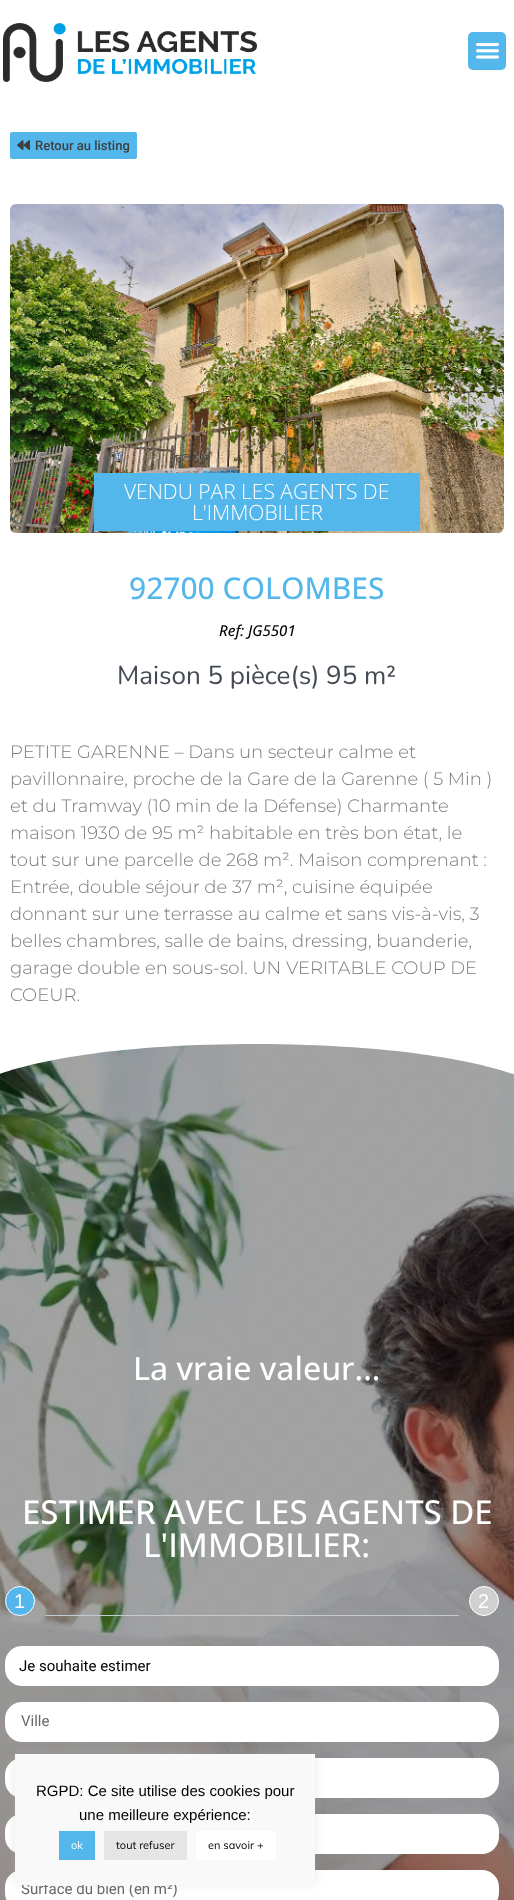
<!DOCTYPE html>
<meta charset="utf-8">
<style>body { margin: 0 } canvas { display: block }</style>
<canvas id="canvas" width="514" height="1900"></canvas>
<script type="module">
  const canvas = document.getElementById("canvas");
  const ctx = canvas.getContext("2d");
  ctx.miterLimit = 4;
  ctx.fontKerning = "normal";
  async function loadImage(src) {
    const img = new Image();
    img.src = src;
    await img.decode();
    return img;
  }

  ctx.fillStyle = "#ffffff";
  ctx.fillRect(0, 0, 514, 1900);
  ctx.drawImage(await loadImage("img1.png"), 3, 23, 254, 59);
  ctx.fillStyle = "#54b7ec";
  ctx.beginPath();
  ctx.roundRect(468, 32, 38, 38, 5);
  ctx.fill();
  ctx.drawImage(await loadImage("img2.png"), 476, 42, 23, 17);
  ctx.beginPath();
  ctx.roundRect(10, 132, 127, 27, 2);
  ctx.fill();
  ctx.drawImage(await loadImage("img3.png"), 17, 140, 13, 10);
  ctx.font = "500 13px Roboto";
  ctx.fillStyle = "#3e3e3e";
  ctx.fillText("Retour au listing", 35, 150);
  ctx.drawImage(await loadImage("img4.png"), 10, 204, 494, 329);
  ctx.fillStyle = "#54b7ec";
  ctx.fillRect(94, 473, 326, 58);
  ctx.font = "300 21px Open Sans";
  ctx.fillStyle = "#ffffff";
  ctx.fillText("VENDU PAR LES AGENTS DE", 124, 499);
  ctx.fillText("L'IMMOBILIER", 192, 520);
  ctx.font = "500 30px Open Sans";
  ctx.fillStyle = "#54b7ec";
  ctx.fillText("92700 COLOMBES", 129, 599);
  ctx.font = "italic 500 15px Open Sans";
  ctx.fillStyle = "#020202";
  ctx.fillText("Ref: JG5501", 219, 636);
  ctx.font = "26px Nunito";
  ctx.fillStyle = "#434a54";
  ctx.fillText("Maison 5 pièce(s) 95 m²", 117, 684);
  ctx.font = "300 18px Montserrat";
  ctx.fillStyle = "#7a7a7a";
  ctx.fillText("PETITE GARENNE – Dans un secteur calme et", 10, 758);
  ctx.fillText("pavillonnaire, proche de la Gare de la Garenne ( 5 Min )", 10, 785);
  ctx.fillText("et du Tramway (10 min de la Défense) Charmante", 10, 812);
  ctx.fillText("maison 1930 de 95 m² habitable en très bon état, le", 10, 839);
  ctx.fillText("tout sur une parcelle de 268 m². Maison comprenant :", 10, 866);
  ctx.fillText("Entrée, double séjour de 37 m², cuisine équipée", 10, 893);
  ctx.fillText("donnant sur une terrasse au calme et sans vis-à-vis, 3", 10, 920);
  ctx.fillText("belles chambres, salle de bains, dressing, buanderie,", 10, 947);
  ctx.fillText("garage double en sous-sol. UN VERITABLE COUP DE", 10, 974);
  ctx.fillText("COEUR.", 10, 1001);
  ctx.drawImage(await loadImage("img5.png"), 0, 1044, 514, 856);
  ctx.fillStyle = "#ffffff";
  ctx.beginPath();
  ctx.moveTo(257, 1044);
  ctx.bezierCurveTo(474, 1045, 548, 1084, 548, 1094);
  ctx.lineTo(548, 1043);
  ctx.lineTo(-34, 1043);
  ctx.lineTo(-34, 1093);
  ctx.bezierCurveTo(-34, 1084, 40, 1044, 257, 1044);
  ctx.closePath();
  ctx.fill();
  ctx.font = "500 32px Open Sans";
  ctx.fillText("La vraie valeur...", 133, 1380);
  ctx.font = "500 33px Open Sans";
  ctx.fillText("ESTIMER AVEC LES AGENTS DE", 22, 1524);
  ctx.fillText("L'IMMOBILIER:", 143, 1557);
  ctx.fillStyle = "#54b7ec";
  ctx.beginPath();
  ctx.arc(20, 1601, 14.5, 0, Math.PI * 2);
  ctx.fill();
  ctx.strokeStyle = "#fdfdfd";
  ctx.stroke();
  ctx.letterSpacing = "1px";
  ctx.font = "20px Liberation Sans";
  ctx.fillStyle = "#ffffff";
  ctx.fillText("1", 14, 1608);
  ctx.fillStyle = "#d0d0d0";
  ctx.beginPath();
  ctx.arc(484, 1601, 14.5, 0, Math.PI * 2);
  ctx.fill();
  ctx.strokeStyle = "#ffffff";
  ctx.stroke();
  ctx.fillStyle = "#ffffff";
  ctx.fillText("2", 478, 1608);
  ctx.fillStyle = "#c2cbd2";
  ctx.fillRect(45, 1615, 414, 1);
  ctx.fillStyle = "#ffffff";
  ctx.beginPath();
  ctx.roundRect(5, 1646, 494, 40, 17);
  ctx.fill();
  ctx.letterSpacing = "0px";
  ctx.font = "15px Roboto";
  ctx.fillStyle = "#020202";
  ctx.fillText("Je souhaite estimer", 19, 1671);
  ctx.fillStyle = "#ffffff";
  ctx.beginPath();
  ctx.roundRect(5, 1702, 494, 40, 17);
  ctx.fill();
  ctx.fillStyle = "#676767";
  ctx.fillText("Ville", 21, 1726);
  ctx.fillStyle = "#ffffff";
  ctx.beginPath();
  ctx.roundRect(5, 1758, 494, 40, 17);
  ctx.fill();
  ctx.beginPath();
  ctx.roundRect(5, 1814, 494, 40, 17);
  ctx.fill();
  ctx.beginPath();
  ctx.roundRect(5, 1870, 494, 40, 17);
  ctx.fill();
  ctx.fillStyle = "#676767";
  ctx.fillText("Surface du bien (en m²)", 21, 1894);
  ctx.fillStyle = "rgba(172, 171, 171, 0.3)";
  ctx.filter = "blur(5px)";
  ctx.beginPath();
  ctx.rect(15, 1753, 300, 131);
  ctx.fill();
  ctx.filter = "none";
  ctx.fillStyle = "#f9f9f9";
  ctx.fillRect(15, 1754, 300, 131);
  ctx.font = "15px Liberation Sans";
  ctx.fillStyle = "#020202";
  ctx.fillText("RGPD: Ce site utilise des cookies pour", 36, 1796);
  ctx.fillText("une meilleure expérience:", 79, 1820);
  ctx.fillStyle = "#53b7eb";
  ctx.fillRect(59, 1831, 36, 29);
  ctx.font = "11px Muli";
  ctx.fillStyle = "#ffffff";
  ctx.fillText("ok", 71, 1849);
  ctx.fillStyle = "#e5e5e5";
  ctx.fillRect(104, 1831, 83, 29);
  ctx.fillStyle = "#020202";
  ctx.fillText("tout refuser", 116, 1849);
  ctx.fillStyle = "#ffffff";
  ctx.fillRect(196, 1831, 80, 29);
  ctx.fillStyle = "#020202";
  ctx.fillText("en savoir +", 208, 1849);
</script>
